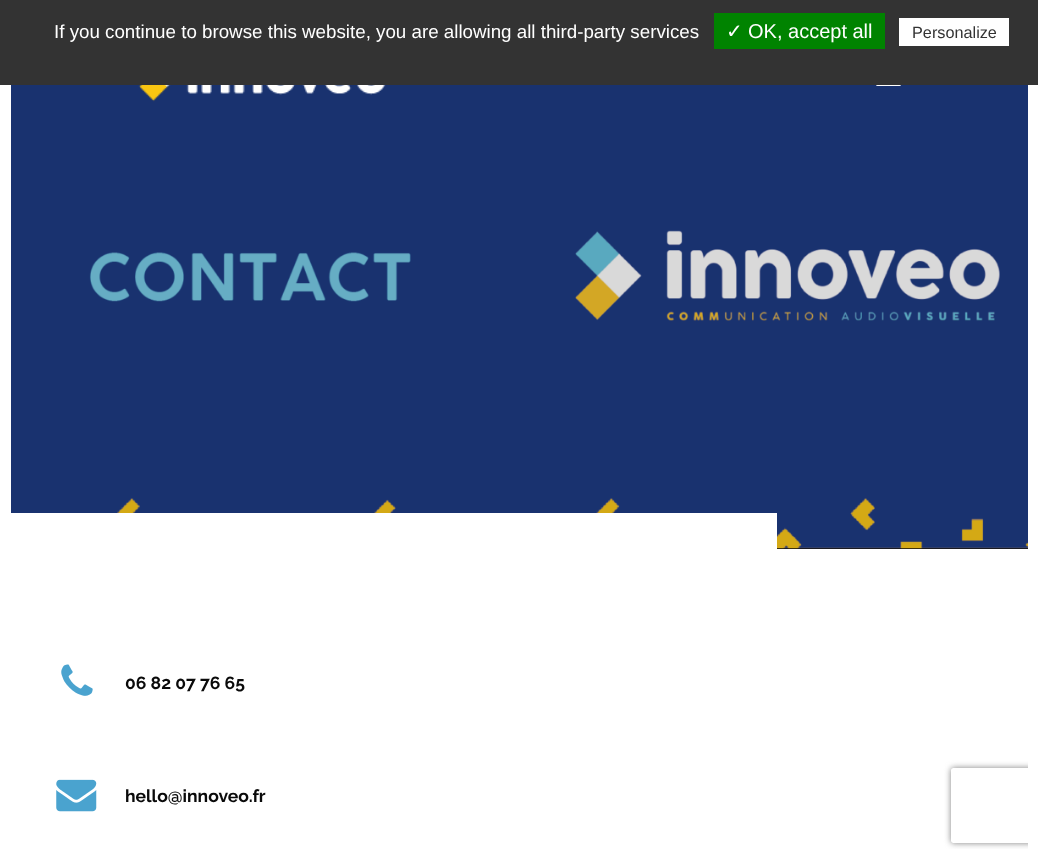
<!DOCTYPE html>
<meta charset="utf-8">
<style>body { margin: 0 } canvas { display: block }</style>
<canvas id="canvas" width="1038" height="860"></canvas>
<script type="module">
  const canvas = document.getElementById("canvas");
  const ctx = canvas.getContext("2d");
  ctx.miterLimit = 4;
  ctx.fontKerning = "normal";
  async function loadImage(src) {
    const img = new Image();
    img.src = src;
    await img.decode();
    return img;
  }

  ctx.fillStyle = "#111314";
  ctx.fillRect(0, 0, 1038, 860);
  ctx.drawImage(await loadImage("img2.png"), 11, 85, 1017, 464);
  ctx.fillStyle = "#ffffff";
  ctx.beginPath();
  ctx.roundRect(876, 83, 25, 3, 1.5);
  ctx.fill();
  ctx.fillStyle = "#333333";
  ctx.fillRect(0, 0, 1038, 85);
  ctx.font = "18.75px Liberation Sans";
  ctx.fillStyle = "#ffffff";
  ctx.fillText("If you continue to browse this website, you are allowing all third-party services", 54, 38);
  ctx.fillStyle = "#008300";
  ctx.fillRect(714, 13, 171, 36);
  ctx.font = "20px DejaVu Sans";
  ctx.fillStyle = "#ffffff";
  ctx.fillText("✓", 726, 38);
  ctx.font = "20px Liberation Sans";
  ctx.fillText("OK, accept all", 748, 38);
  ctx.fillRect(899, 18, 110, 28);
  ctx.font = "16.25px Liberation Sans";
  ctx.fillStyle = "#333333";
  ctx.fillText("Personalize", 912, 38);
  ctx.fillStyle = "#ffffff";
  ctx.fillRect(0, 85, 11, 775);
  ctx.fillRect(11, 549, 1017, 300);
  ctx.save();
  ctx.beginPath();
  ctx.moveTo(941, 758);
  ctx.lineTo(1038, 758);
  ctx.lineTo(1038, 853);
  ctx.lineTo(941, 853);
  ctx.closePath();
  ctx.moveTo(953.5, 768);
  ctx.lineTo(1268.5, 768);
  ctx.bezierCurveTo(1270, 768, 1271, 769, 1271, 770.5);
  ctx.lineTo(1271, 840.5);
  ctx.bezierCurveTo(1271, 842, 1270, 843, 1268.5, 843);
  ctx.lineTo(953.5, 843);
  ctx.bezierCurveTo(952, 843, 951, 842, 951, 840.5);
  ctx.lineTo(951, 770.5);
  ctx.bezierCurveTo(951, 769, 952, 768, 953.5, 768);
  ctx.closePath();
  ctx.clip("evenodd");
  ctx.fillStyle = "#808080";
  ctx.filter = "blur(3px)";
  ctx.beginPath();
  ctx.roundRect(951, 768, 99, 75, 2.5);
  ctx.fill();
  ctx.filter = "none";
  ctx.restore();
  ctx.fillRect(1028, 85, 10, 764);
  ctx.fillRect(11, 849, 1027, 11);
  ctx.drawImage(await loadImage("img1.png"), 138, 85, 248, 17);
  ctx.fillRect(11, 513, 766, 36);
  ctx.drawImage(await loadImage("img3.png"), 61, 664, 32, 32);
  ctx.font = "bold 17.5px Raleway";
  ctx.fillStyle = "#0a0a0a";
  ctx.fillText("06 82 07 76 65", 125, 689);
  ctx.drawImage(await loadImage("img4.png"), 56, 779, 41, 33);
  ctx.fillText("hello@innoveo.fr", 125, 802);
</script>
